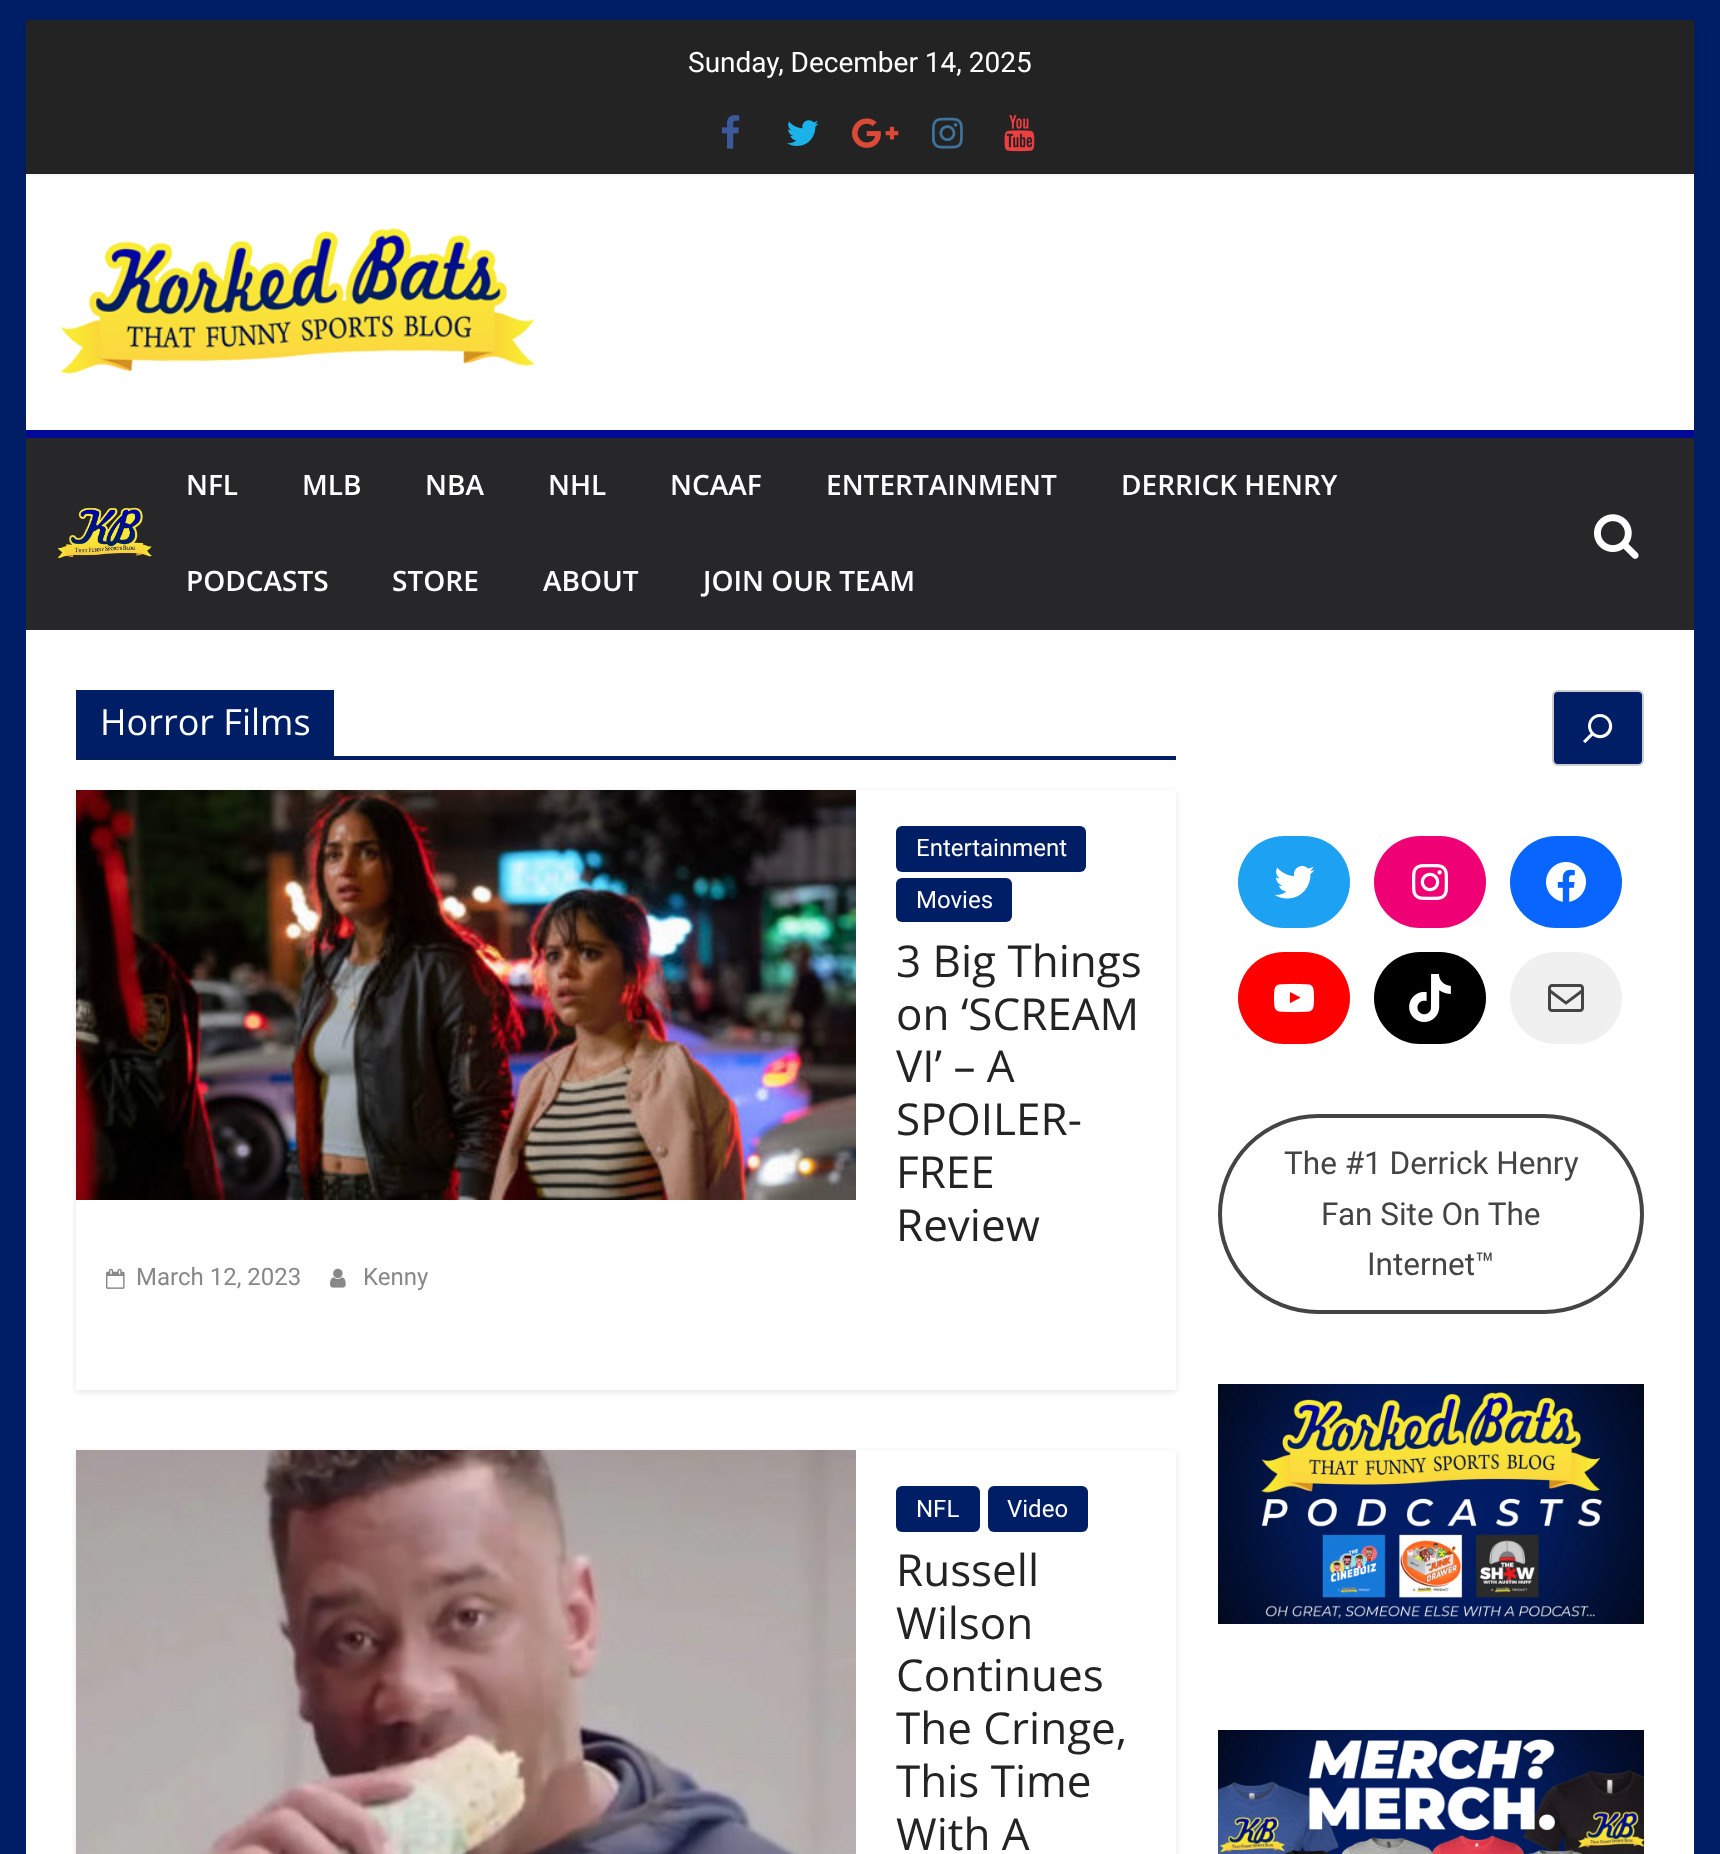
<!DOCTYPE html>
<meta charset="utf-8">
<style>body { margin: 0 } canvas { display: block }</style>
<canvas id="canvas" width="1720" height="1854"></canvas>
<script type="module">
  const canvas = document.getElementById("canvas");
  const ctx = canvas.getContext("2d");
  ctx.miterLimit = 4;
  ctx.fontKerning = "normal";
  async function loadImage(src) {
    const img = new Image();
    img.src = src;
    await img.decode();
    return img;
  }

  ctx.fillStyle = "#001e65";
  ctx.fillRect(0, 0, 1720, 1854);
  ctx.fillStyle = "#ffffff";
  ctx.fillRect(26, 174, 1668, 256);
  ctx.fillStyle = "rgba(0, 0, 0, 0.1)";
  ctx.filter = "blur(2px)";
  ctx.beginPath();
  ctx.rect(26, 20, 1668, 154);
  ctx.fill();
  ctx.filter = "none";
  ctx.fillStyle = "#232323";
  ctx.fillRect(26, 20, 1668, 154);
  ctx.font = "28px Roboto";
  ctx.fillStyle = "#ffffff";
  ctx.fillText("Sunday, December 14, 2025", 688, 72);
  ctx.drawImage(await loadImage("img1.png"), 721, 115, 19, 34);
  ctx.drawImage(await loadImage("img2.png"), 787, 120, 32, 26);
  ctx.drawImage(await loadImage("img3.png"), 852, 118, 47, 30);
  ctx.drawImage(await loadImage("img4.png"), 932, 117, 31, 32);
  ctx.drawImage(await loadImage("img5.png"), 1004, 115, 31, 37);
  ctx.drawImage(await loadImage("img6.png"), 60, 228, 475, 146);
  ctx.fillStyle = "#27272a";
  ctx.fillRect(26, 438, 1668, 192);
  ctx.fillStyle = "#000998";
  ctx.fillRect(26, 430, 1668, 8);
  ctx.drawImage(await loadImage("img7.png"), 57, 507, 95, 51);
  ctx.font = "600 28px Open Sans";
  ctx.fillStyle = "#ffffff";
  ctx.fillText("NFL", 186, 495);
  ctx.fillText("MLB", 302, 495);
  ctx.fillText("NBA", 425, 495);
  ctx.fillText("NHL", 548, 495);
  ctx.fillText("NCAAF", 670, 495);
  ctx.fillText("ENTERTAINMENT", 826, 495);
  ctx.fillText("DERRICK HENRY", 1121, 495);
  ctx.fillText("PODCASTS", 186, 591);
  ctx.fillText("STORE", 392, 591);
  ctx.fillText("ABOUT", 543, 591);
  ctx.fillText("JOIN OUR TEAM", 703, 591);
  ctx.drawImage(await loadImage("img8.png"), 1594, 514, 45, 45);
  ctx.fillRect(26, 630, 1668, 1224);
  ctx.fillStyle = "#001e65";
  ctx.fillRect(76, 756, 1100, 4);
  ctx.fillRect(76, 690, 258, 66);
  ctx.font = "36px Open Sans";
  ctx.fillStyle = "#ffffff";
  ctx.fillText("Horror Films", 100, 735);
  ctx.save();
  ctx.beginPath();
  ctx.moveTo(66, 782);
  ctx.lineTo(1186, 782);
  ctx.lineTo(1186, 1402);
  ctx.lineTo(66, 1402);
  ctx.closePath();
  ctx.moveTo(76, 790);
  ctx.lineTo(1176, 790);
  ctx.lineTo(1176, 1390);
  ctx.lineTo(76, 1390);
  ctx.closePath();
  ctx.clip("evenodd");
  ctx.fillStyle = "rgba(0, 0, 0, 0.1)";
  ctx.filter = "blur(3px)";
  ctx.beginPath();
  ctx.rect(76, 792, 1100, 600);
  ctx.fill();
  ctx.filter = "none";
  ctx.restore();
  ctx.drawImage(await loadImage("img9.png"), 76, 790, 780, 410);
  ctx.fillStyle = "#001e65";
  ctx.beginPath();
  ctx.roundRect(896, 826, 190, 46, 6);
  ctx.fill();
  ctx.font = "24px Roboto";
  ctx.fillStyle = "#ffffff";
  ctx.fillText("Entertainment", 916, 856);
  ctx.fillStyle = "#001e65";
  ctx.beginPath();
  ctx.roundRect(896, 878, 116, 44, 6);
  ctx.fill();
  ctx.fillStyle = "#ffffff";
  ctx.fillText("Movies", 916, 908);
  ctx.font = "44px Open Sans";
  ctx.fillStyle = "#232323";
  ctx.fillText("3 Big Things", 896, 977);
  ctx.fillText("on ‘SCREAM", 896, 1030);
  ctx.fillText("VI’ – A", 896, 1082);
  ctx.fillText("SPOILER-", 896, 1135);
  ctx.fillText("FREE", 896, 1188);
  ctx.fillText("Review", 896, 1241);
  ctx.drawImage(await loadImage("img10.png"), 106, 1268, 19, 21);
  ctx.font = "24px Roboto";
  ctx.fillStyle = "#888888";
  ctx.fillText("March 12, 2023", 136, 1285);
  ctx.drawImage(await loadImage("img11.png"), 330, 1268, 16, 20);
  ctx.fillText("Kenny", 363, 1285);
  ctx.save();
  ctx.beginPath();
  ctx.moveTo(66, 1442);
  ctx.lineTo(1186, 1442);
  ctx.lineTo(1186, 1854);
  ctx.lineTo(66, 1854);
  ctx.closePath();
  ctx.moveTo(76, 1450);
  ctx.lineTo(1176, 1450);
  ctx.lineTo(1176, 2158);
  ctx.lineTo(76, 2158);
  ctx.closePath();
  ctx.clip("evenodd");
  ctx.fillStyle = "rgba(0, 0, 0, 0.1)";
  ctx.filter = "blur(3px)";
  ctx.beginPath();
  ctx.rect(76, 1452, 1100, 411);
  ctx.fill();
  ctx.filter = "none";
  ctx.restore();
  ctx.drawImage(await loadImage("img12.png"), 76, 1450, 780, 404);
  ctx.fillStyle = "#001e65";
  ctx.beginPath();
  ctx.roundRect(896, 1486, 84, 46, 6);
  ctx.fill();
  ctx.fillStyle = "#ffffff";
  ctx.fillText("NFL", 916, 1517);
  ctx.fillStyle = "#001e65";
  ctx.beginPath();
  ctx.roundRect(988, 1486, 100, 46, 6);
  ctx.fill();
  ctx.fillStyle = "#ffffff";
  ctx.fillText("Video", 1007, 1517);
  ctx.font = "44px Open Sans";
  ctx.fillStyle = "#232323";
  ctx.fillText("Russell", 896, 1586);
  ctx.fillText("Wilson", 896, 1639);
  ctx.fillText("Continues", 896, 1691);
  ctx.fillText("The Cringe,", 896, 1744);
  ctx.fillText("This Time", 896, 1797);
  ctx.fillText("With A", 896, 1850);
  ctx.fillStyle = "#001e65";
  ctx.beginPath();
  ctx.roundRect(1553, 691, 90, 74, 5);
  ctx.fill();
  ctx.strokeStyle = "#cccccc";
  ctx.lineWidth = 2;
  ctx.stroke();
  ctx.drawImage(await loadImage("img13.png"), 1583, 714, 30, 30);
  ctx.fillStyle = "#1da1f2";
  ctx.beginPath();
  ctx.roundRect(1238, 836, 112, 92, 46);
  ctx.fill();
  ctx.drawImage(await loadImage("img14.png"), 1274, 866, 41, 33);
  ctx.fillStyle = "#f00075";
  ctx.beginPath();
  ctx.roundRect(1374, 836, 112, 92, 46);
  ctx.fill();
  ctx.drawImage(await loadImage("img15.png"), 1412, 864, 36, 36);
  ctx.fillStyle = "#0866ff";
  ctx.beginPath();
  ctx.roundRect(1510, 836, 112, 92, 46);
  ctx.fill();
  ctx.drawImage(await loadImage("img16.png"), 1546, 862, 40, 40);
  ctx.fillStyle = "#ff0000";
  ctx.beginPath();
  ctx.roundRect(1238, 952, 112, 92, 46);
  ctx.fill();
  ctx.drawImage(await loadImage("img17.png"), 1274, 983, 40, 30);
  ctx.fillStyle = "#000000";
  ctx.beginPath();
  ctx.roundRect(1374, 952, 112, 92, 46);
  ctx.fill();
  ctx.drawImage(await loadImage("img18.png"), 1409, 974, 42, 48);
  ctx.fillStyle = "#f0f0f0";
  ctx.beginPath();
  ctx.roundRect(1510, 952, 112, 92, 46);
  ctx.fill();
  ctx.drawImage(await loadImage("img19.png"), 1548, 984, 36, 28);
  ctx.beginPath();
  ctx.roundRect(1220, 1116, 422, 196, 98);
  ctx.strokeStyle = "#444444";
  ctx.lineWidth = 4;
  ctx.stroke();
  ctx.font = "31.5px Roboto";
  ctx.fillStyle = "#444444";
  ctx.fillText("The #1 Derrick Henry", 1284, 1174);
  ctx.fillText("Fan Site On The", 1321, 1225);
  ctx.fillText("Internet™", 1367, 1275);
  ctx.drawImage(await loadImage("img20.png"), 1218, 1384, 426, 240);
  ctx.drawImage(await loadImage("img21.png"), 1218, 1730, 426, 124);
</script>
